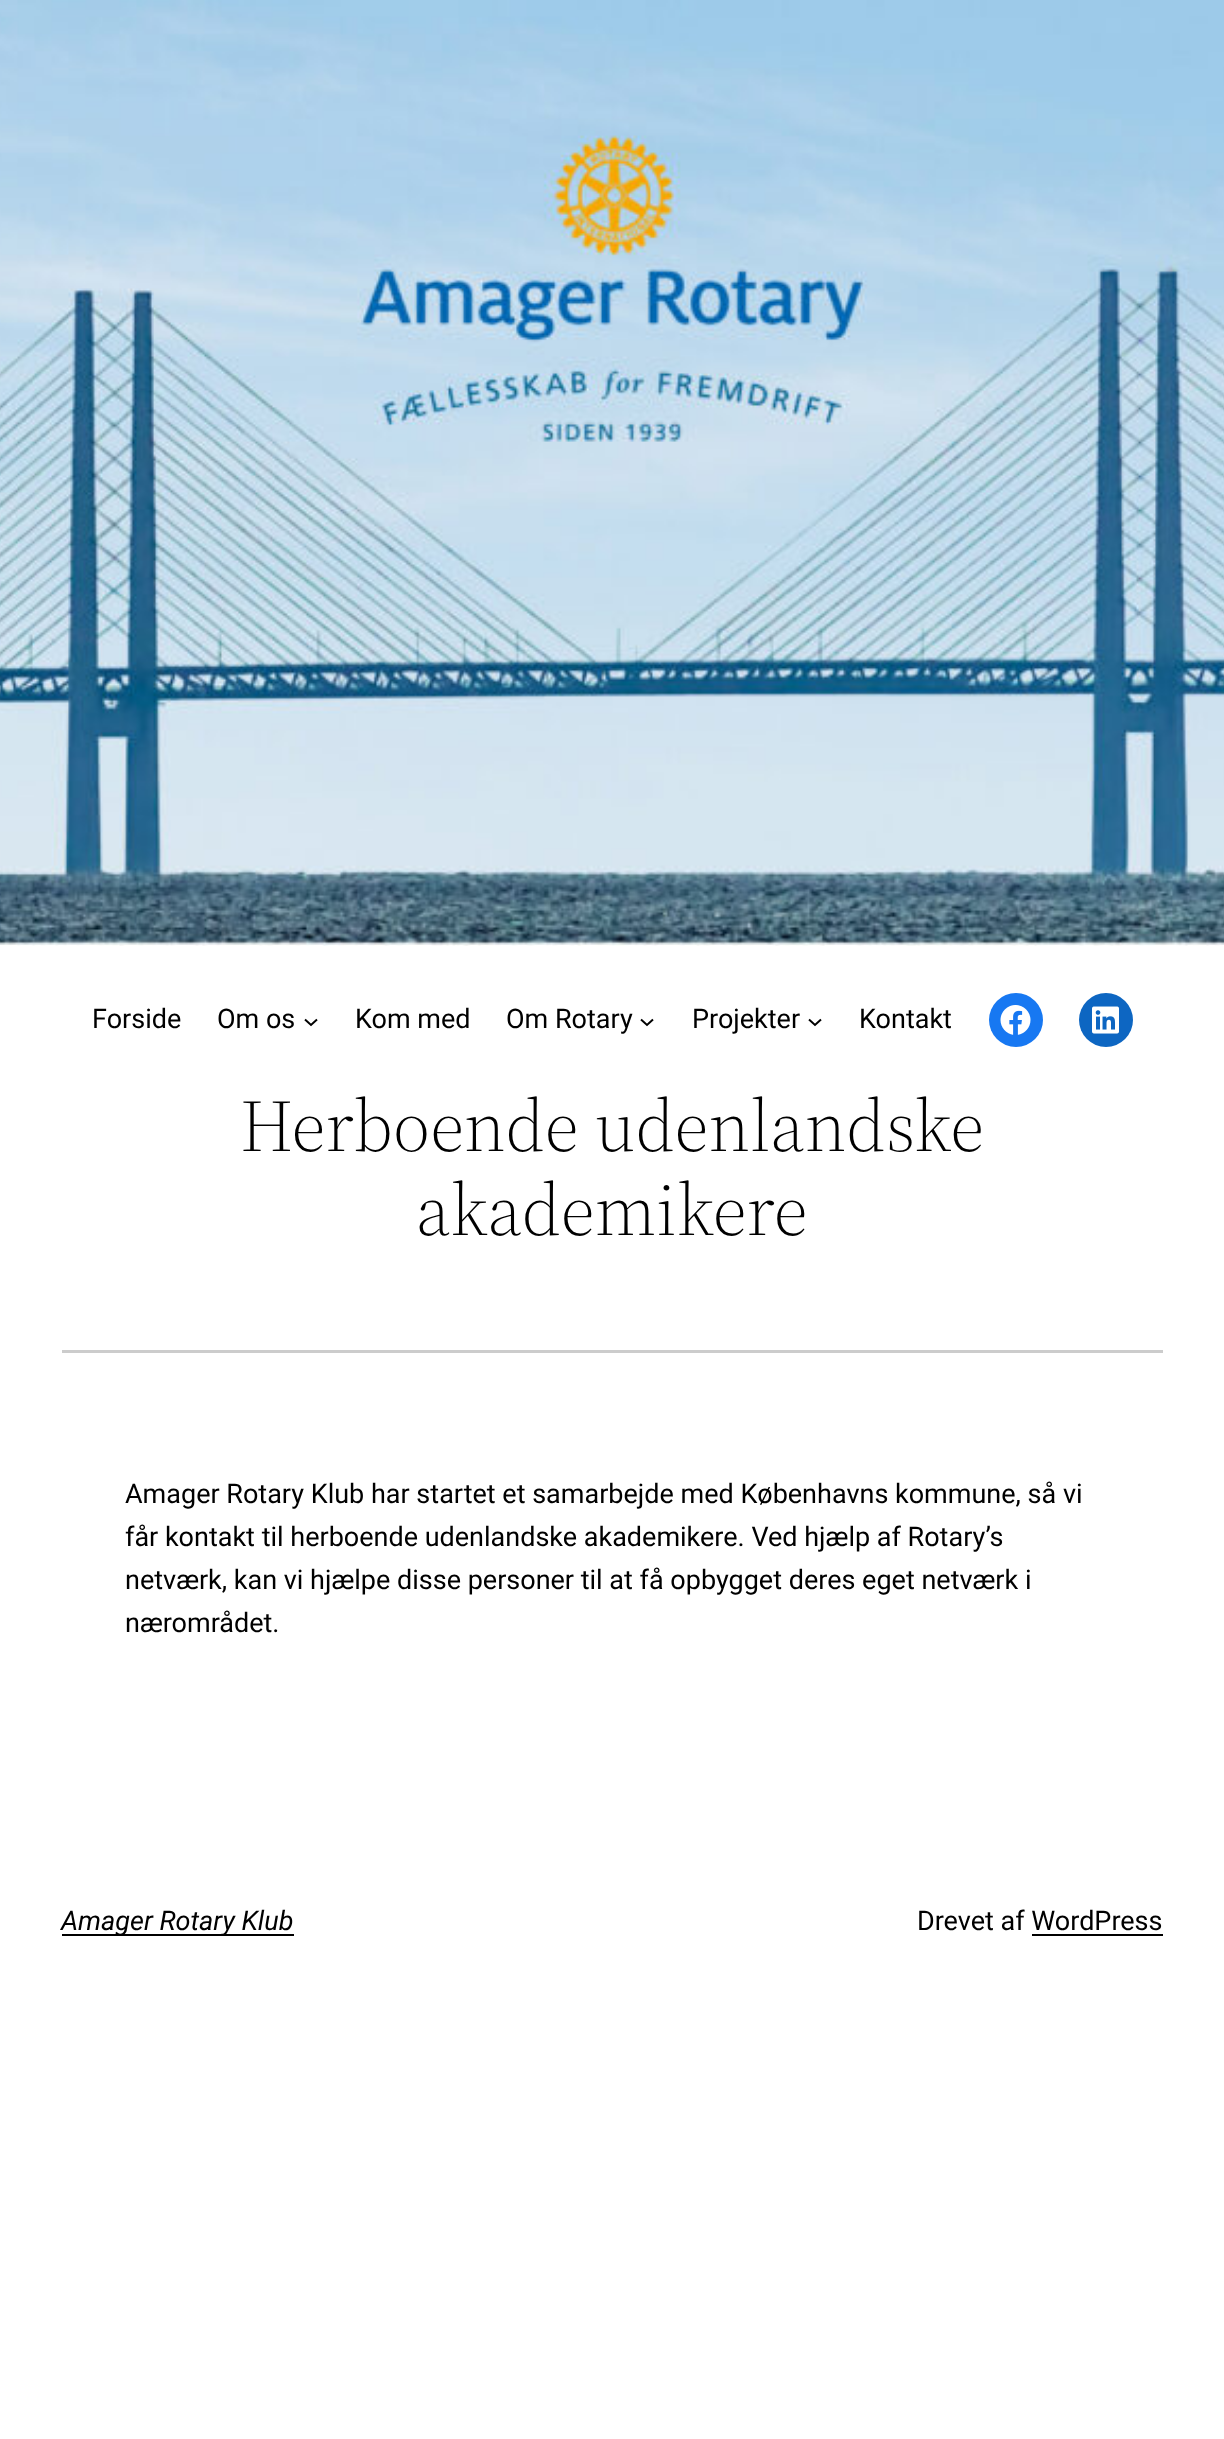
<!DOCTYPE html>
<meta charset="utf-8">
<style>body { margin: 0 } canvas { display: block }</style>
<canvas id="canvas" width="1224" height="2439"></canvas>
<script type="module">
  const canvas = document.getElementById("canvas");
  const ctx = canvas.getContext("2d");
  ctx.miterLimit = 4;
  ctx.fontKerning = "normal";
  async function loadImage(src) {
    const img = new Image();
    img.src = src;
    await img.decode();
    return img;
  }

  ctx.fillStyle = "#ffffff";
  ctx.fillRect(0, 0, 1224, 2439);
  ctx.drawImage(await loadImage("img1.png"), 0, 0, 1224, 946);
  ctx.font = "27px Roboto";
  ctx.fillStyle = "#000000";
  ctx.fillText("Forside", 92, 1028);
  ctx.fillText("Om os", 217, 1028);
  ctx.beginPath();
  ctx.moveTo(305, 1019.5);
  ctx.lineTo(311, 1025);
  ctx.lineTo(317, 1019.5);
  ctx.strokeStyle = "#000000";
  ctx.lineWidth = 2;
  ctx.stroke();
  ctx.fillText("Kom med", 355, 1028);
  ctx.fillText("Om Rotary", 506, 1028);
  ctx.beginPath();
  ctx.moveTo(641, 1019.5);
  ctx.lineTo(647, 1025);
  ctx.lineTo(653, 1019.5);
  ctx.stroke();
  ctx.fillText("Projekter", 692, 1028);
  ctx.beginPath();
  ctx.moveTo(809, 1019.5);
  ctx.lineTo(815, 1025);
  ctx.lineTo(821, 1019.5);
  ctx.stroke();
  ctx.fillText("Kontakt", 859, 1028);
  ctx.fillStyle = "#1778f2";
  ctx.beginPath();
  ctx.arc(1016, 1020, 27, 0, Math.PI * 2);
  ctx.fill();
  ctx.drawImage(await loadImage("img2.png"), 1000, 1005, 31, 30);
  ctx.fillStyle = "#0d66c2";
  ctx.beginPath();
  ctx.arc(1106, 1020, 27, 0, Math.PI * 2);
  ctx.fill();
  ctx.drawImage(await loadImage("img3.png"), 1092, 1006, 27, 28);
  ctx.font = "300 73.5px 'Source Serif 4'";
  ctx.fillStyle = "#000000";
  ctx.fillText("Herboende udenlandske", 240, 1151);
  ctx.fillText("akademikere", 416, 1235);
  ctx.fillStyle = "#cccccc";
  ctx.fillRect(62, 1350, 1101, 3);
  ctx.font = "27px Roboto";
  ctx.fillStyle = "#000000";
  ctx.fillText("Amager Rotary Klub har startet et samarbejde med Københavns kommune, så vi", 125, 1503);
  ctx.fillText("får kontakt til herboende udenlandske akademikere. Ved hjælp af Rotary’s", 125, 1546);
  ctx.fillText("netværk, kan vi hjælpe disse personer til at få opbygget deres eget netværk i", 125, 1589);
  ctx.fillText("nærområdet.", 125, 1632);
  ctx.fillRect(62, 1934, 232, 2);
  ctx.font = "italic 27px Roboto";
  ctx.fillText("Amager Rotary Klub", 61, 1930);
  ctx.font = "27px Roboto";
  ctx.fillText("Drevet af WordPress", 917, 1930);
  ctx.fillRect(1032, 1934, 131, 2);
</script>
